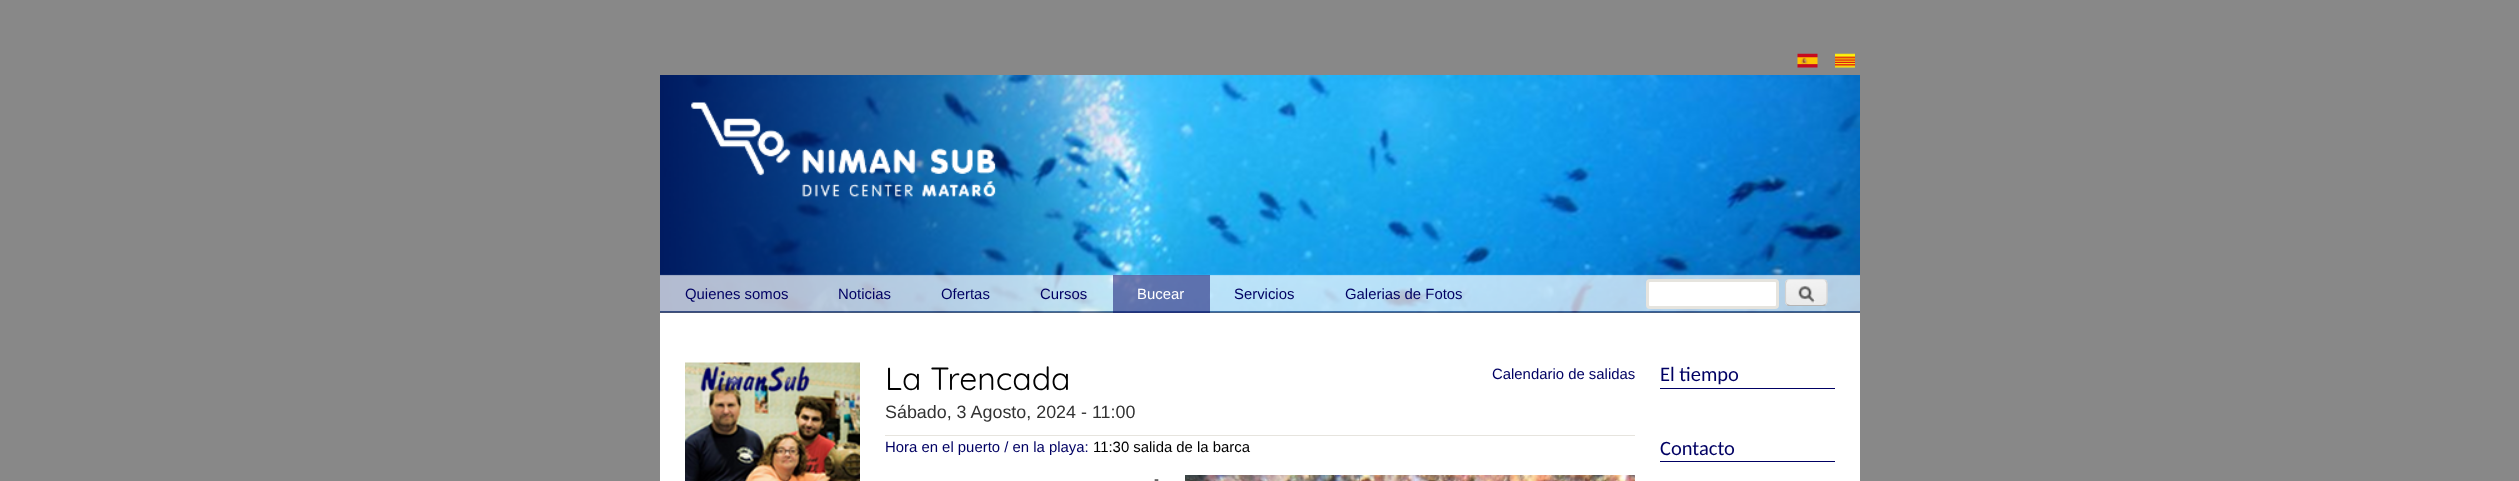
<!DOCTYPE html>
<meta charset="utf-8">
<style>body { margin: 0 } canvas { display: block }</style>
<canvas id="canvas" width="2519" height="481"></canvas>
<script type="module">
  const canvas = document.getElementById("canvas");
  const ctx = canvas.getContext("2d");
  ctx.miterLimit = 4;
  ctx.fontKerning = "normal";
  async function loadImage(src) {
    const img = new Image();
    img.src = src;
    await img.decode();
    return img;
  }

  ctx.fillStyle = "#888888";
  ctx.fillRect(0, 0, 2519, 481);
  ctx.drawImage(await loadImage("img1.png"), 660, 75, 1200, 238);
  ctx.drawImage(await loadImage("img2.png"), 1797, 53, 21, 15);
  ctx.drawImage(await loadImage("img3.png"), 1835, 53, 20, 15);
  ctx.drawImage(await loadImage("img4.png"), 691, 102, 305, 95);
  ctx.font = "14.9px Liberation Sans";
  ctx.fillStyle = "#000063";
  ctx.fillText("Quienes somos", 685, 299);
  ctx.fillText("Noticias", 838, 299);
  ctx.fillText("Ofertas", 941, 299);
  ctx.fillText("Cursos", 1040, 299);
  ctx.fillStyle = "rgba(0, 0, 99, 0.5)";
  ctx.fillRect(1113, 275, 97, 38);
  ctx.fillStyle = "#ffffff";
  ctx.fillText("Bucear", 1137, 299);
  ctx.fillStyle = "#000063";
  ctx.fillText("Servicios", 1234, 299);
  ctx.fillText("Galerias de Fotos", 1345, 299);
  ctx.fillStyle = "#ffffff";
  ctx.beginPath();
  ctx.roundRect(1647.5, 280.5, 130, 27, 2.5);
  ctx.fill();
  ctx.strokeStyle = "#e6e4de";
  ctx.lineWidth = 3;
  ctx.stroke();
  ctx.drawImage(await loadImage("img5.png"), 1785, 280, 43, 26);
  ctx.beginPath();
  ctx.moveTo(1787, 280.5);
  ctx.bezierCurveTo(1787.5, 280, 1789, 279.5, 1790, 279.5);
  ctx.lineTo(1822.5, 279.5);
  ctx.bezierCurveTo(1823.5, 279.5, 1825, 280, 1825.5, 280.5);
  ctx.strokeStyle = "#e4e4e4";
  ctx.lineWidth = 1.2;
  ctx.stroke();
  ctx.beginPath();
  ctx.moveTo(1825.5, 280.5);
  ctx.bezierCurveTo(1826.5, 281.5, 1827, 282.5, 1827, 284);
  ctx.lineTo(1827, 301);
  ctx.bezierCurveTo(1827, 302.5, 1826.5, 303.5, 1825.5, 304.5);
  ctx.strokeStyle = "#d2d2d2";
  ctx.stroke();
  ctx.beginPath();
  ctx.moveTo(1825.5, 304.5);
  ctx.bezierCurveTo(1825, 305, 1823.5, 305.5, 1822.5, 305.5);
  ctx.lineTo(1790, 305.5);
  ctx.bezierCurveTo(1789, 305.5, 1787.5, 305, 1787, 304.5);
  ctx.strokeStyle = "#b4b4b4";
  ctx.stroke();
  ctx.beginPath();
  ctx.moveTo(1787, 304.5);
  ctx.bezierCurveTo(1786, 303.5, 1785.5, 302.5, 1785.5, 301);
  ctx.lineTo(1785.5, 284);
  ctx.bezierCurveTo(1785.5, 282.5, 1786, 281.5, 1787, 280.5);
  ctx.strokeStyle = "#d2d2d2";
  ctx.stroke();
  ctx.fillRect(660, 313, 1200, 168);
  ctx.drawImage(await loadImage("img6.png"), 685, 362, 175, 119);
  ctx.fillStyle = "#e6e4de";
  ctx.fillRect(885, 435, 750, 1);
  ctx.font = "300 32px Quicksand";
  ctx.fillStyle = "#000000";
  ctx.fillText("La Trencada", 885, 390);
  ctx.font = "14.9px Liberation Sans";
  ctx.fillStyle = "#000063";
  ctx.fillText("Calendario de salidas", 1492, 379);
  ctx.font = "17.9px Liberation Sans";
  ctx.fillStyle = "#333333";
  ctx.fillText("Sábado, 3 Agosto, 2024 - 11:00", 885, 418);
  ctx.font = "14.9px Liberation Sans";
  ctx.fillStyle = "#000063";
  ctx.fillText("Hora en el puerto / en la playa:", 885, 452);
  ctx.fillStyle = "#000000";
  ctx.fillText("11:30 salida de la barca", 1093, 452);
  ctx.fillText("-", 1154, 484);
  ctx.drawImage(await loadImage("img7.png"), 1185, 475, 450, 6);
  ctx.fillStyle = "#000063";
  ctx.fillRect(1660, 388, 175, 1);
  ctx.font = "20.5px Carlito";
  ctx.fillText("El tiempo", 1660, 381);
  ctx.fillRect(1660, 461, 175, 1);
  ctx.fillText("Contacto", 1660, 455);
</script>
